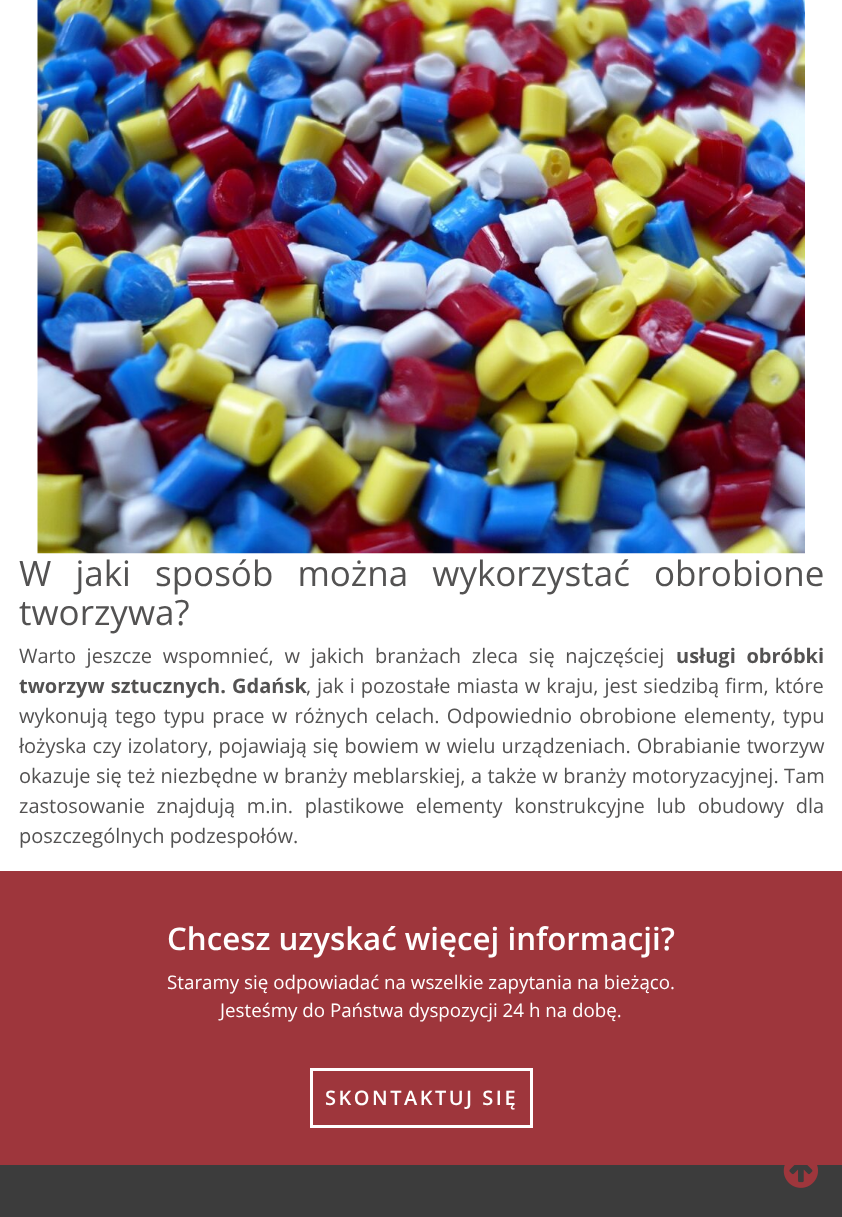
<!DOCTYPE html>
<meta charset="utf-8">
<style>body { margin: 0 } canvas { display: block }</style>
<canvas id="canvas" width="842" height="1217"></canvas>
<script type="module">
  const canvas = document.getElementById("canvas");
  const ctx = canvas.getContext("2d");
  ctx.miterLimit = 4;
  ctx.fontKerning = "normal";
  async function loadImage(src) {
    const img = new Image();
    img.src = src;
    await img.decode();
    return img;
  }

  ctx.fillStyle = "#ffffff";
  ctx.fillRect(0, 0, 842, 1217);
  ctx.drawImage(await loadImage("img1.png"), 37, 0, 768, 554);
  ctx.wordSpacing = "15px";
  ctx.font = "35px Open Sans";
  ctx.fillStyle = "#535252";
  ctx.fillText("W jaki sposób można wykorzystać obrobione", 19, 586);
  ctx.wordSpacing = "0px";
  ctx.fillText("tworzywa?", 19, 625);
  ctx.wordSpacing = "5.5px";
  ctx.font = "20px Open Sans";
  ctx.fillText("Warto jeszcze wspomnieć, w jakich branżach zleca się najczęściej", 19, 663);
  ctx.font = "bold 20px Open Sans";
  ctx.fillText("usługi obróbki", 676, 663);
  ctx.wordSpacing = "1px";
  ctx.fillText("tworzyw sztucznych. Gdańsk", 19, 693);
  ctx.wordSpacing = "0.75px";
  ctx.font = "20px Open Sans";
  ctx.fillText(", jak i pozostałe miasta w kraju, jest siedzibą firm, które", 306, 693);
  ctx.wordSpacing = "2px";
  ctx.fillText("wykonują tego typu prace w różnych celach. Odpowiednio obrobione elementy, typu", 19, 723);
  ctx.wordSpacing = "0.75px";
  ctx.fillText("łożyska czy izolatory, pojawiają się bowiem w wielu urządzeniach. Obrabianie tworzyw", 19, 753);
  ctx.wordSpacing = "0.25px";
  ctx.fillText("okazuje się też niezbędne w branży meblarskiej, a także w branży motoryzacyjnej. Tam", 19, 783);
  ctx.wordSpacing = "6.5px";
  ctx.fillText("zastosowanie znajdują m.in. plastikowe elementy konstrukcyjne lub obudowy dla", 19, 813);
  ctx.wordSpacing = "0px";
  ctx.fillText("poszczególnych podzespołów.", 19, 843);
  ctx.fillStyle = "#9e363c";
  ctx.fillRect(0, 871, 842, 294);
  ctx.font = "600 31.25px Open Sans";
  ctx.fillStyle = "#fffefe";
  ctx.fillText("Chcesz uzyskać więcej informacji?", 167, 950);
  ctx.font = "18.75px Open Sans";
  ctx.fillText("Staramy się odpowiadać na wszelkie zapytania na bieżąco.", 167, 989);
  ctx.fillText("Jesteśmy do Państwa dyspozycji 24 h na dobę.", 220, 1017);
  ctx.strokeStyle = "#fffefe";
  ctx.lineWidth = 3;
  ctx.strokeRect(311.5, 1069.5, 220, 57);
  ctx.letterSpacing = "2.5px";
  ctx.font = "600 20px Open Sans";
  ctx.fillText("SKONTAKTUJ SIĘ", 325, 1105);
  ctx.fillStyle = "#3c3c3c";
  ctx.fillRect(0, 1165, 842, 52);
  ctx.drawImage(await loadImage("img2.png"), 783, 1165, 35, 23);
</script>
